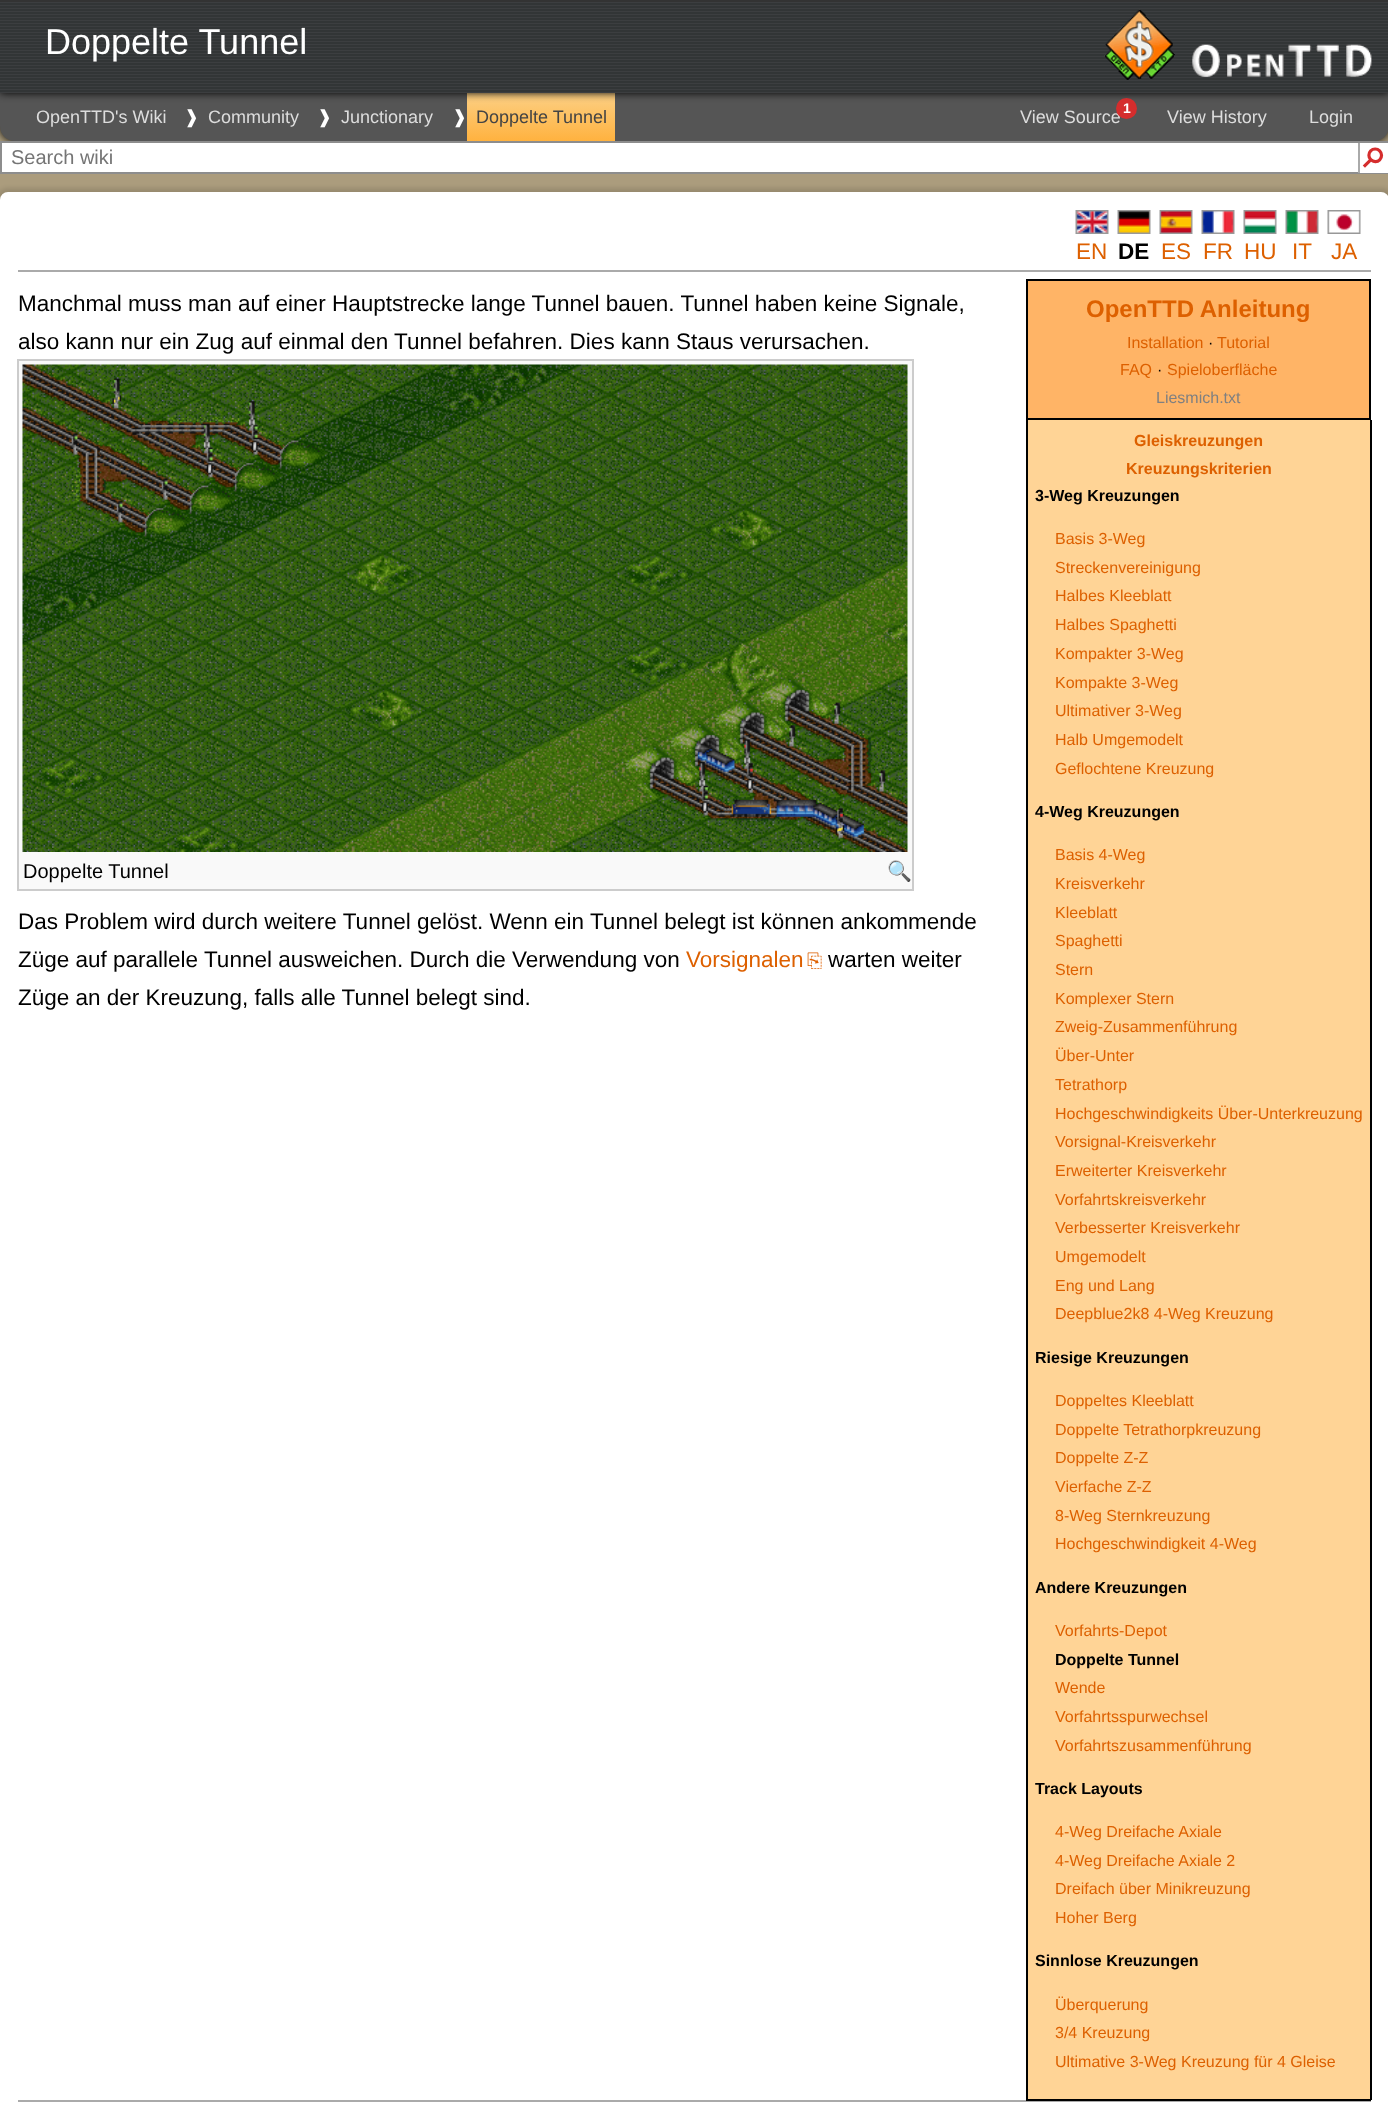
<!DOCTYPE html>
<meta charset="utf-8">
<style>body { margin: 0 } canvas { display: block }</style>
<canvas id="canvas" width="1388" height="2110"></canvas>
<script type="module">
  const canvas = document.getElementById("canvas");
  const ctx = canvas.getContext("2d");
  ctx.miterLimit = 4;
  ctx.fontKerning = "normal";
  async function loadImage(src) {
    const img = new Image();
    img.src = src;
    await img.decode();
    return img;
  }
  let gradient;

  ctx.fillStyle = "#ab9c7d";
  ctx.fillRect(0, 0, 1388, 2110);
  ctx.fillStyle = "#000000";
  ctx.filter = "blur(4px)";
  ctx.beginPath();
  ctx.roundRect(0, 93, 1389, 48, 15);
  ctx.fill();
  ctx.filter = "none";
  ctx.fillStyle = "#555555";
  ctx.beginPath();
  ctx.moveTo(0, 93);
  ctx.lineTo(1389, 93);
  ctx.lineTo(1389, 126);
  ctx.bezierCurveTo(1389, 134.5, 1382.5, 141, 1374, 141);
  ctx.lineTo(15, 141);
  ctx.bezierCurveTo(6.5, 141, 0, 134.5, 0, 126);
  ctx.closePath();
  ctx.fill();
  gradient = ctx.createLinearGradient(541, 93, 541, 141);
  gradient.addColorStop(0, "#fcd085");
  gradient.addColorStop(1, "#ffb23f");
  ctx.fillStyle = gradient;
  ctx.fillRect(467, 93, 148, 48);
  ctx.fillStyle = "#000000";
  ctx.filter = "blur(4px)";
  ctx.beginPath();
  ctx.rect(0, 0, 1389, 93);
  ctx.fill();
  ctx.filter = "none";
  ctx.fillStyle = "#333333";
  ctx.fillRect(0, 0, 1388, 2);
  ctx.drawImage(await loadImage("img1.png"), 0, 2, 1388, 91);
  ctx.font = "36px Liberation Sans";
  ctx.fillStyle = "#ffffff";
  ctx.fillText("Doppelte Tunnel", 45, 54);
  ctx.drawImage(await loadImage("img2.png"), 1104, 9, 71, 71);
  ctx.drawImage(await loadImage("img3.png"), 1192, 44, 180, 33);
  ctx.font = "18px Liberation Sans";
  ctx.fillStyle = "#dddddd";
  ctx.fillText("OpenTTD's Wiki", 36, 123);
  ctx.font = "18px DejaVu Sans";
  ctx.fillStyle = "#ffffff";
  ctx.fillText("❱", 184, 123);
  ctx.font = "18px Liberation Sans";
  ctx.fillStyle = "#dddddd";
  ctx.fillText("Community", 208, 123);
  ctx.font = "18px DejaVu Sans";
  ctx.fillStyle = "#ffffff";
  ctx.fillText("❱", 317, 123);
  ctx.font = "18px Liberation Sans";
  ctx.fillStyle = "#dddddd";
  ctx.fillText("Junctionary", 341, 123);
  ctx.font = "18px DejaVu Sans";
  ctx.fillStyle = "#ffffff";
  ctx.fillText("❱", 452, 123);
  ctx.font = "18px Liberation Sans";
  ctx.fillStyle = "#444444";
  ctx.fillText("Doppelte Tunnel", 476, 123);
  ctx.fillStyle = "#dddddd";
  ctx.fillText("View Source", 1020, 123);
  ctx.fillStyle = "#d52d2d";
  ctx.beginPath();
  ctx.arc(1126.5, 108.5, 10.5, 0, Math.PI * 2);
  ctx.fill();
  ctx.font = "bold 14px Liberation Sans";
  ctx.fillStyle = "#ffffff";
  ctx.fillText("1", 1123, 113);
  ctx.font = "18px Liberation Sans";
  ctx.fillStyle = "#dddddd";
  ctx.fillText("View History", 1167, 123);
  ctx.fillText("Login", 1309, 123);
  ctx.fillStyle = "#ffffff";
  ctx.fillRect(2, 143, 1356, 29);
  ctx.strokeStyle = "#8d8d8d";
  ctx.lineWidth = 2;
  ctx.strokeRect(1, 142, 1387, 31);
  ctx.font = "20px Liberation Sans";
  ctx.fillStyle = "#757575";
  ctx.fillText("Search wiki", 11, 164);
  ctx.fillStyle = "#ffffff";
  ctx.fillRect(1360, 143, 28, 30);
  ctx.fillStyle = "#aaaaaa";
  ctx.fillRect(1358, 143, 2, 30);
  ctx.font = "bold 27px DejaVu Sans";
  ctx.fillStyle = "#d52d2d";
  ctx.save();
  ctx.translate(1359, 157);
  ctx.rotate(45 * Math.PI / 180);
  ctx.fillText("⚲", 0, 0);
  ctx.restore();
  ctx.fillStyle = "rgba(0, 0, 0, 0.11)";
  ctx.filter = "blur(2px)";
  ctx.beginPath();
  ctx.roundRect(-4, 188, 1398, 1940, 12);
  ctx.fill();
  ctx.filter = "none";
  ctx.fillStyle = "#ffffff";
  ctx.beginPath();
  ctx.roundRect(0, 192, 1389, 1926, 8);
  ctx.fill();
  ctx.fillStyle = "#aaaaaa";
  ctx.fillRect(18, 270, 1353, 2);
  ctx.drawImage(await loadImage("img4.png"), 1075, 210, 34, 24);
  ctx.font = "22.5px Liberation Sans";
  ctx.fillStyle = "#dd6000";
  ctx.fillText("EN", 1076, 259);
  ctx.drawImage(await loadImage("img5.png"), 1117, 210, 34, 24);
  ctx.font = "bold 22.5px Liberation Sans";
  ctx.fillStyle = "#000000";
  ctx.fillText("DE", 1118, 259);
  ctx.drawImage(await loadImage("img6.png"), 1159, 210, 34, 24);
  ctx.font = "22.5px Liberation Sans";
  ctx.fillStyle = "#dd6000";
  ctx.fillText("ES", 1161, 259);
  ctx.drawImage(await loadImage("img7.png"), 1201, 210, 34, 24);
  ctx.fillText("FR", 1203, 259);
  ctx.drawImage(await loadImage("img8.png"), 1243, 210, 34, 24);
  ctx.fillText("HU", 1244, 259);
  ctx.drawImage(await loadImage("img9.png"), 1285, 210, 34, 24);
  ctx.fillText("IT", 1292, 259);
  ctx.drawImage(await loadImage("img10.png"), 1327, 210, 34, 24);
  ctx.fillText("JA", 1331, 259);
  ctx.fillStyle = "#000000";
  ctx.fillText("Manchmal muss man auf einer Hauptstrecke lange Tunnel bauen. Tunnel haben keine Signale,", 18, 311);
  ctx.fillText("also kann nur ein Zug auf einmal den Tunnel befahren. Dies kann Staus verursachen.", 18, 349);
  ctx.fillStyle = "#ffb466";
  ctx.beginPath();
  ctx.rect(1027, 280, 343, 139);
  ctx.fill();
  ctx.strokeStyle = "#000000";
  ctx.stroke();
  ctx.font = "bold 24px Liberation Sans";
  ctx.fillStyle = "#dd6000";
  ctx.fillText("OpenTTD Anleitung", 1086, 317);
  ctx.font = "16px Liberation Sans";
  ctx.fillText("Installation", 1127, 348);
  ctx.fillStyle = "#000000";
  ctx.fillText("·", 1208, 348);
  ctx.fillStyle = "#dd6000";
  ctx.fillText("Tutorial", 1217, 348);
  ctx.fillText("FAQ", 1120, 375);
  ctx.fillStyle = "#000000";
  ctx.fillText("·", 1157, 375);
  ctx.fillStyle = "#dd6000";
  ctx.fillText("Spieloberfläche", 1167, 375);
  ctx.fillStyle = "#808080";
  ctx.fillText("Liesmich.txt", 1156, 403);
  ctx.fillStyle = "#ffd496";
  ctx.fillRect(1028, 420, 342, 1679);
  ctx.fillStyle = "#000000";
  ctx.fillRect(1370, 420, 2, 1680);
  ctx.fillStyle = "#aaaaaa";
  ctx.fillRect(18, 2100, 1353, 2);
  ctx.fillStyle = "#000000";
  ctx.fillRect(1026, 2099, 345, 2);
  ctx.fillRect(1026, 420, 2, 1680);
  ctx.font = "bold 16px Liberation Sans";
  ctx.fillStyle = "#dd6000";
  ctx.fillText("Gleiskreuzungen", 1134, 446);
  ctx.fillText("Kreuzungskriterien", 1126, 474);
  ctx.fillStyle = "#000000";
  ctx.fillText("3-Weg Kreuzungen", 1035, 501);
  ctx.font = "16px Liberation Sans";
  ctx.fillStyle = "#dd6000";
  ctx.fillText("Basis 3-Weg", 1055, 544);
  ctx.fillText("Streckenvereinigung", 1055, 573);
  ctx.fillText("Halbes Kleeblatt", 1055, 601);
  ctx.fillText("Halbes Spaghetti", 1055, 630);
  ctx.fillText("Kompakter 3-Weg", 1055, 659);
  ctx.fillText("Kompakte 3-Weg", 1055, 688);
  ctx.fillText("Ultimativer 3-Weg", 1055, 716);
  ctx.fillText("Halb Umgemodelt", 1055, 745);
  ctx.fillText("Geflochtene Kreuzung", 1055, 774);
  ctx.font = "bold 16px Liberation Sans";
  ctx.fillStyle = "#000000";
  ctx.fillText("4-Weg Kreuzungen", 1035, 817);
  ctx.font = "16px Liberation Sans";
  ctx.fillStyle = "#dd6000";
  ctx.fillText("Basis 4-Weg", 1055, 860);
  ctx.fillText("Kreisverkehr", 1055, 889);
  ctx.fillText("Kleeblatt", 1055, 918);
  ctx.fillText("Spaghetti", 1055, 946);
  ctx.fillText("Stern", 1055, 975);
  ctx.fillText("Komplexer Stern", 1055, 1004);
  ctx.fillText("Zweig-Zusammenführung", 1055, 1032);
  ctx.fillText("Über-Unter", 1055, 1061);
  ctx.fillText("Tetrathorp", 1055, 1090);
  ctx.fillText("Hochgeschwindigkeits Über-Unterkreuzung", 1055, 1119);
  ctx.fillText("Vorsignal-Kreisverkehr", 1055, 1147);
  ctx.fillText("Erweiterter Kreisverkehr", 1055, 1176);
  ctx.fillText("Vorfahrtskreisverkehr", 1055, 1205);
  ctx.fillText("Verbesserter Kreisverkehr", 1055, 1233);
  ctx.fillText("Umgemodelt", 1055, 1262);
  ctx.fillText("Eng und Lang", 1055, 1291);
  ctx.fillText("Deepblue2k8 4-Weg Kreuzung", 1055, 1319);
  ctx.font = "bold 16px Liberation Sans";
  ctx.fillStyle = "#000000";
  ctx.fillText("Riesige Kreuzungen", 1035, 1363);
  ctx.font = "16px Liberation Sans";
  ctx.fillStyle = "#dd6000";
  ctx.fillText("Doppeltes Kleeblatt", 1055, 1406);
  ctx.fillText("Doppelte Tetrathorpkreuzung", 1055, 1435);
  ctx.fillText("Doppelte Z-Z", 1055, 1463);
  ctx.fillText("Vierfache Z-Z", 1055, 1492);
  ctx.fillText("8-Weg Sternkreuzung", 1055, 1521);
  ctx.fillText("Hochgeschwindigkeit 4-Weg", 1055, 1549);
  ctx.font = "bold 16px Liberation Sans";
  ctx.fillStyle = "#000000";
  ctx.fillText("Andere Kreuzungen", 1035, 1593);
  ctx.font = "16px Liberation Sans";
  ctx.fillStyle = "#dd6000";
  ctx.fillText("Vorfahrts-Depot", 1055, 1636);
  ctx.font = "bold 16px Liberation Sans";
  ctx.fillStyle = "#000000";
  ctx.fillText("Doppelte Tunnel", 1055, 1665);
  ctx.font = "16px Liberation Sans";
  ctx.fillStyle = "#dd6000";
  ctx.fillText("Wende", 1055, 1693);
  ctx.fillText("Vorfahrtsspurwechsel", 1055, 1722);
  ctx.fillText("Vorfahrtszusammenführung", 1055, 1751);
  ctx.font = "bold 16px Liberation Sans";
  ctx.fillStyle = "#000000";
  ctx.fillText("Track Layouts", 1035, 1794);
  ctx.font = "16px Liberation Sans";
  ctx.fillStyle = "#dd6000";
  ctx.fillText("4-Weg Dreifache Axiale", 1055, 1837);
  ctx.fillText("4-Weg Dreifache Axiale 2", 1055, 1866);
  ctx.fillText("Dreifach über Minikreuzung", 1055, 1894);
  ctx.fillText("Hoher Berg", 1055, 1923);
  ctx.font = "bold 16px Liberation Sans";
  ctx.fillStyle = "#000000";
  ctx.fillText("Sinnlose Kreuzungen", 1035, 1966);
  ctx.font = "16px Liberation Sans";
  ctx.fillStyle = "#dd6000";
  ctx.fillText("Überquerung", 1055, 2010);
  ctx.fillText("3/4 Kreuzung", 1055, 2038);
  ctx.fillText("Ultimative 3-Weg Kreuzung für 4 Gleise", 1055, 2067);
  ctx.fillStyle = "#f9f9f9";
  ctx.fillRect(19, 361, 893, 528);
  ctx.drawImage(await loadImage("img11.png"), 22, 364, 886, 488);
  ctx.strokeStyle = "#cccccc";
  ctx.strokeRect(18, 360, 895, 530);
  ctx.font = "20px Liberation Sans";
  ctx.fillStyle = "#000000";
  ctx.fillText("Doppelte Tunnel", 23, 878);
  ctx.font = "20px Noto Color Emoji";
  ctx.fillStyle = "#dd6000";
  ctx.fillText("🔍", 887, 878);
  ctx.font = "22.5px Liberation Sans";
  ctx.fillStyle = "#000000";
  ctx.fillText("Das Problem wird durch weitere Tunnel gelöst. Wenn ein Tunnel belegt ist können ankommende", 18, 929);
  ctx.fillText("Züge auf parallele Tunnel ausweichen. Durch die Verwendung von", 18, 967);
  ctx.fillStyle = "#dd6000";
  ctx.fillText("Vorsignalen", 686, 967);
  ctx.font = "19px FreeSerif";
  ctx.fillText("⎘", 807, 967);
  ctx.font = "22.5px Liberation Sans";
  ctx.fillStyle = "#000000";
  ctx.fillText("warten weiter", 828, 967);
  ctx.fillText("Züge an der Kreuzung, falls alle Tunnel belegt sind.", 18, 1005);
</script>
